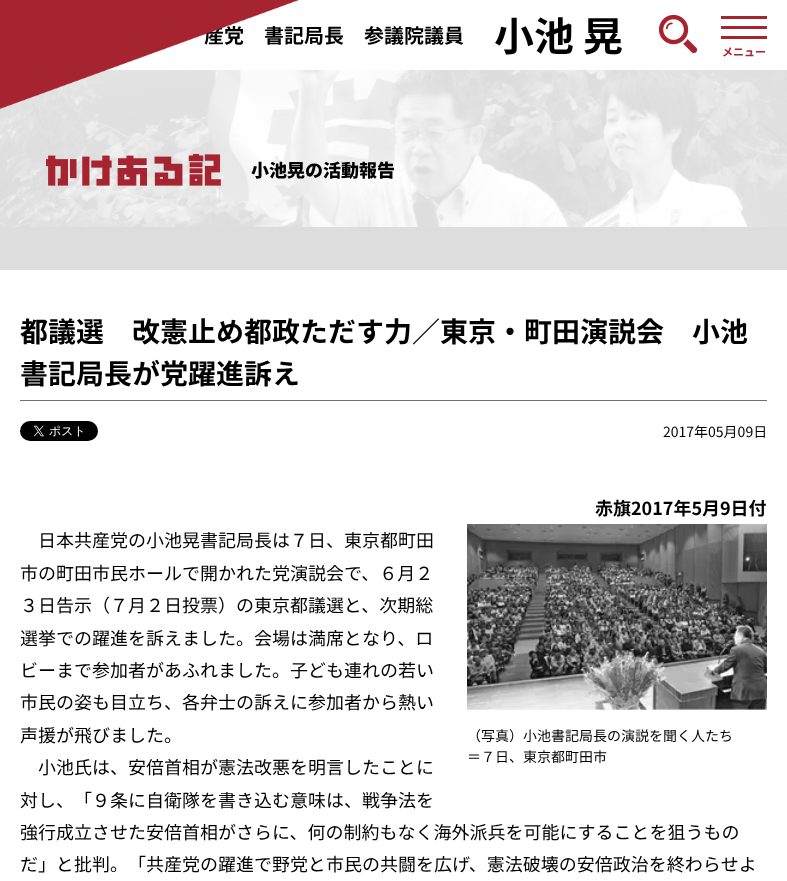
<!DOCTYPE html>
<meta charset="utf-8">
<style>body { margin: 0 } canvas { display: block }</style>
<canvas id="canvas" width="787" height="881"></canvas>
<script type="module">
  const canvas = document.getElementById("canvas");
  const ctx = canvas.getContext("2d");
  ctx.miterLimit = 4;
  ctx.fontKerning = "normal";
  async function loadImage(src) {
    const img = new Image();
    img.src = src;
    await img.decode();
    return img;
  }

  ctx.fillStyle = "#ffffff";
  ctx.fillRect(0, 0, 787, 881);
  ctx.font = "bold 20px Noto Sans JP";
  ctx.fillStyle = "#000000";
  ctx.fillText("産党　書記局長", 204, 43);
  ctx.drawImage(await loadImage("img3.png"), 0, 70, 787, 157);
  ctx.drawImage(await loadImage("img1.png"), 0, 0, 299, 109);
  ctx.fillText("参議院議員", 364, 43);
  ctx.font = "bold 40px Noto Sans JP";
  ctx.fillText("小池 晃", 494, 51);
  ctx.drawImage(await loadImage("img2.png"), 659, 15, 38, 38);
  ctx.fillStyle = "#a62430";
  ctx.fillRect(721, 16, 46, 3);
  ctx.fillRect(721, 26, 46, 3);
  ctx.fillRect(721, 36, 46, 3);
  ctx.font = "bold 11px Noto Sans JP";
  ctx.fillText("メニュー", 722, 56);
  ctx.fillStyle = "#dddddd";
  ctx.fillRect(0, 227, 787, 43);
  ctx.drawImage(await loadImage("img4.png"), 46, 154, 175, 32);
  ctx.font = "900 18px Noto Sans JP";
  ctx.fillStyle = "#000000";
  ctx.fillText("小池晃の活動報告", 251, 177);
  ctx.fillStyle = "#707070";
  ctx.fillRect(20, 400, 747, 1);
  ctx.font = "bold 28px Noto Sans JP";
  ctx.fillStyle = "#000000";
  ctx.fillText("都議選　改憲止め都政ただす力／東京・町田演説会　小池", 20, 342);
  ctx.fillText("書記局長が党躍進訴え", 20, 384);
  ctx.drawImage(await loadImage("img5.png"), 20, 421, 78, 20);
  ctx.font = "14px Noto Sans JP";
  ctx.fillText("2017年05月09日", 663, 437);
  ctx.font = "bold 18px Noto Sans JP";
  ctx.fillText("赤旗2017年5月9日付", 595, 515);
  ctx.font = "18px Noto Sans JP";
  ctx.fillText("日本共産党の小池晃書記局長は７日、東京都町田", 38, 547);
  ctx.fillText("市の町田市民ホールで開かれた党演説会で、６月２", 20, 580);
  ctx.fillText("３日告示（７月２日投票）の東京都議選と、次期総", 20, 612);
  ctx.fillText("選挙での躍進を訴えました。会場は満席となり、ロ", 20, 645);
  ctx.fillText("ビーまで参加者があふれました。子ども連れの若い", 20, 677);
  ctx.fillText("市民の姿も目立ち、各弁士の訴えに参加者から熱い", 20, 709);
  ctx.fillText("声援が飛びました。", 20, 742);
  ctx.drawImage(await loadImage("img6.png"), 467, 524, 300, 186);
  ctx.font = "14px Noto Sans JP";
  ctx.fillText("（写真）小池書記局長の演説を聞く人たち", 467, 741);
  ctx.fillText("＝７日、東京都町田市", 467, 762);
  ctx.font = "18px Noto Sans JP";
  ctx.fillText("小池氏は、安倍首相が憲法改悪を明言したことに", 38, 774);
  ctx.fillText("対し、「９条に自衛隊を書き込む意味は、戦争法を", 20, 807);
  ctx.fillText("強行成立させた安倍首相がさらに、何の制約もなく海外派兵を可能にすることを狙うもの", 20, 839);
  ctx.fillText("だ」と批判。「共産党の躍進で野党と市民の共闘を広げ、憲法破壊の安倍政治を終わらせよ", 20, 871);
</script>
